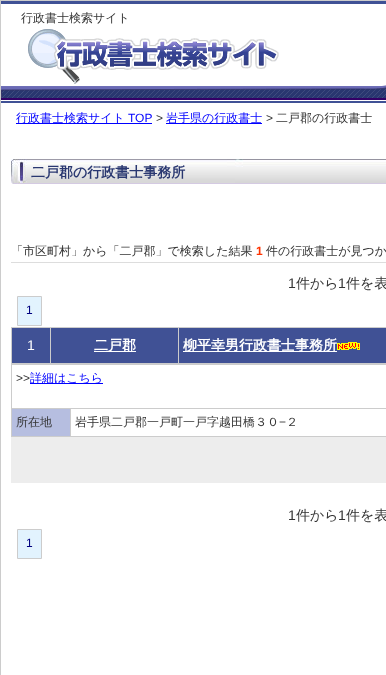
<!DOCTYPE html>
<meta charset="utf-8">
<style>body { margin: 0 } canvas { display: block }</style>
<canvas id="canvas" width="386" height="675"></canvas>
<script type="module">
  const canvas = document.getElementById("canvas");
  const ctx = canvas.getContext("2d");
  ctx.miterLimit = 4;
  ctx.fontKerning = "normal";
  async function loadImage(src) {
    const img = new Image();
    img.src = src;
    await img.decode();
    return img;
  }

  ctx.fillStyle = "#ffffff";
  ctx.fillRect(0, 0, 386, 675);
  ctx.strokeStyle = "#cccccc";
  ctx.strokeRect(0.5, 0.5, 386, 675);
  ctx.drawImage(await loadImage("img1.png"), 1, 85, 385, 15);
  ctx.fillStyle = "#405195";
  ctx.fillRect(1, 1, 385, 3);
  ctx.fillRect(1, 101, 385, 2);
  ctx.font = "500 12px WenQuanYi Zen Hei";
  ctx.fillStyle = "#333333";
  ctx.fillText("行政書士検索サイト", 21, 22);
  ctx.drawImage(await loadImage("img2.png"), 28, 29, 251, 55);
  ctx.fillStyle = "#0000ff";
  ctx.fillRect(16, 123, 136, 1);
  ctx.fillText("行政書士検索サイト", 16, 122);
  ctx.font = "12px Liberation Sans";
  ctx.fillText("TOP", 128, 122);
  ctx.fillStyle = "#333333";
  ctx.fillText(">", 156, 122);
  ctx.fillStyle = "#0000ff";
  ctx.fillRect(166, 123, 96, 1);
  ctx.font = "500 12px WenQuanYi Zen Hei";
  ctx.fillText("岩手県の行政書士", 166, 122);
  ctx.font = "12px Liberation Sans";
  ctx.fillStyle = "#333333";
  ctx.fillText(">", 266, 122);
  ctx.font = "500 12px WenQuanYi Zen Hei";
  ctx.fillText("二戸郡の行政書士", 276, 122);
  ctx.drawImage(await loadImage("img3.png"), 11, 159, 375, 25);
  ctx.font = "bold 14px WenQuanYi Zen Hei";
  ctx.fillStyle = "#293770";
  ctx.fillText("二戸郡の行政書士事務所", 31, 177);
  ctx.fillStyle = "#dddddd";
  ctx.fillRect(11, 262, 375, 1);
  ctx.font = "500 12px WenQuanYi Zen Hei";
  ctx.fillStyle = "#333333";
  ctx.fillText("「市区町村」から「二戸郡」で検索した結果", 11, 255);
  ctx.font = "bold 12px Liberation Sans";
  ctx.fillStyle = "#ff3300";
  ctx.fillText("1", 256, 255);
  ctx.font = "500 12px WenQuanYi Zen Hei";
  ctx.fillStyle = "#333333";
  ctx.fillText("件の行政書士が見つか", 266, 255);
  ctx.font = "14px Liberation Sans";
  ctx.fillText("1", 288, 288);
  ctx.font = "500 14px WenQuanYi Zen Hei";
  ctx.fillText("件から", 296, 288);
  ctx.font = "14px Liberation Sans";
  ctx.fillText("1", 338, 288);
  ctx.font = "500 14px WenQuanYi Zen Hei";
  ctx.fillText("件を表", 346, 288);
  ctx.fillStyle = "#e2f3fe";
  ctx.beginPath();
  ctx.rect(17.5, 296.5, 24, 29);
  ctx.fill();
  ctx.stroke();
  ctx.font = "12px Liberation Sans";
  ctx.fillStyle = "#000080";
  ctx.fillText("1", 26, 314);
  ctx.fillStyle = "#405195";
  ctx.fillRect(12, 328, 374, 35);
  ctx.fillStyle = "#cccccc";
  ctx.fillRect(178, 327, 208, 1);
  ctx.fillRect(178, 363, 208, 1);
  ctx.fillRect(178, 327, 1, 37);
  ctx.fillRect(50, 327, 129, 1);
  ctx.fillRect(50, 363, 129, 1);
  ctx.fillRect(50, 327, 1, 37);
  ctx.fillRect(11, 327, 40, 1);
  ctx.fillRect(11, 363, 40, 1);
  ctx.fillRect(11, 327, 1, 37);
  ctx.font = "14px Liberation Sans";
  ctx.fillStyle = "#ffffff";
  ctx.fillText("1", 27, 350);
  ctx.fillRect(94, 351, 42, 1);
  ctx.font = "bold 14px WenQuanYi Zen Hei";
  ctx.fillText("二戸郡", 94, 350);
  ctx.fillRect(183, 351, 154, 1);
  ctx.fillText("柳平幸男行政書士事務所", 183, 350);
  ctx.drawImage(await loadImage("img4.png"), 337, 342, 23, 8);
  ctx.fillStyle = "#cccccc";
  ctx.fillRect(11, 364, 375, 1);
  ctx.fillRect(70, 408, 316, 1);
  ctx.fillRect(70, 436, 316, 1);
  ctx.fillRect(70, 408, 1, 29);
  ctx.fillRect(11, 408, 60, 1);
  ctx.fillRect(11, 436, 60, 1);
  ctx.fillRect(11, 408, 1, 29);
  ctx.fillRect(11, 364, 1, 45);
  ctx.font = "12px Liberation Sans";
  ctx.fillStyle = "#333333";
  ctx.fillText(">>", 16, 382);
  ctx.fillStyle = "#0000ff";
  ctx.fillRect(30, 383, 73, 1);
  ctx.font = "500 12px WenQuanYi Zen Hei";
  ctx.fillText("詳細はこちら", 30, 382);
  ctx.fillStyle = "#b6bee0";
  ctx.fillRect(12, 409, 58, 27);
  ctx.fillStyle = "#333333";
  ctx.fillText("所在地", 16, 426);
  ctx.fillText("岩手県二戸郡一戸町一戸字越田橋３０", 75, 426);
  ctx.font = "12px Liberation Sans";
  ctx.fillText("−", 279, 426);
  ctx.font = "500 12px WenQuanYi Zen Hei";
  ctx.fillText("２", 286, 426);
  ctx.fillStyle = "#ededed";
  ctx.fillRect(11, 437, 375, 46);
  ctx.font = "14px Liberation Sans";
  ctx.fillStyle = "#333333";
  ctx.fillText("1", 288, 520);
  ctx.font = "500 14px WenQuanYi Zen Hei";
  ctx.fillText("件から", 296, 520);
  ctx.font = "14px Liberation Sans";
  ctx.fillText("1", 338, 520);
  ctx.font = "500 14px WenQuanYi Zen Hei";
  ctx.fillText("件を表", 346, 520);
  ctx.fillStyle = "#e2f3fe";
  ctx.beginPath();
  ctx.rect(17.5, 529.5, 24, 29);
  ctx.fill();
  ctx.stroke();
  ctx.font = "12px Liberation Sans";
  ctx.fillStyle = "#000080";
  ctx.fillText("1", 26, 547);
</script>
